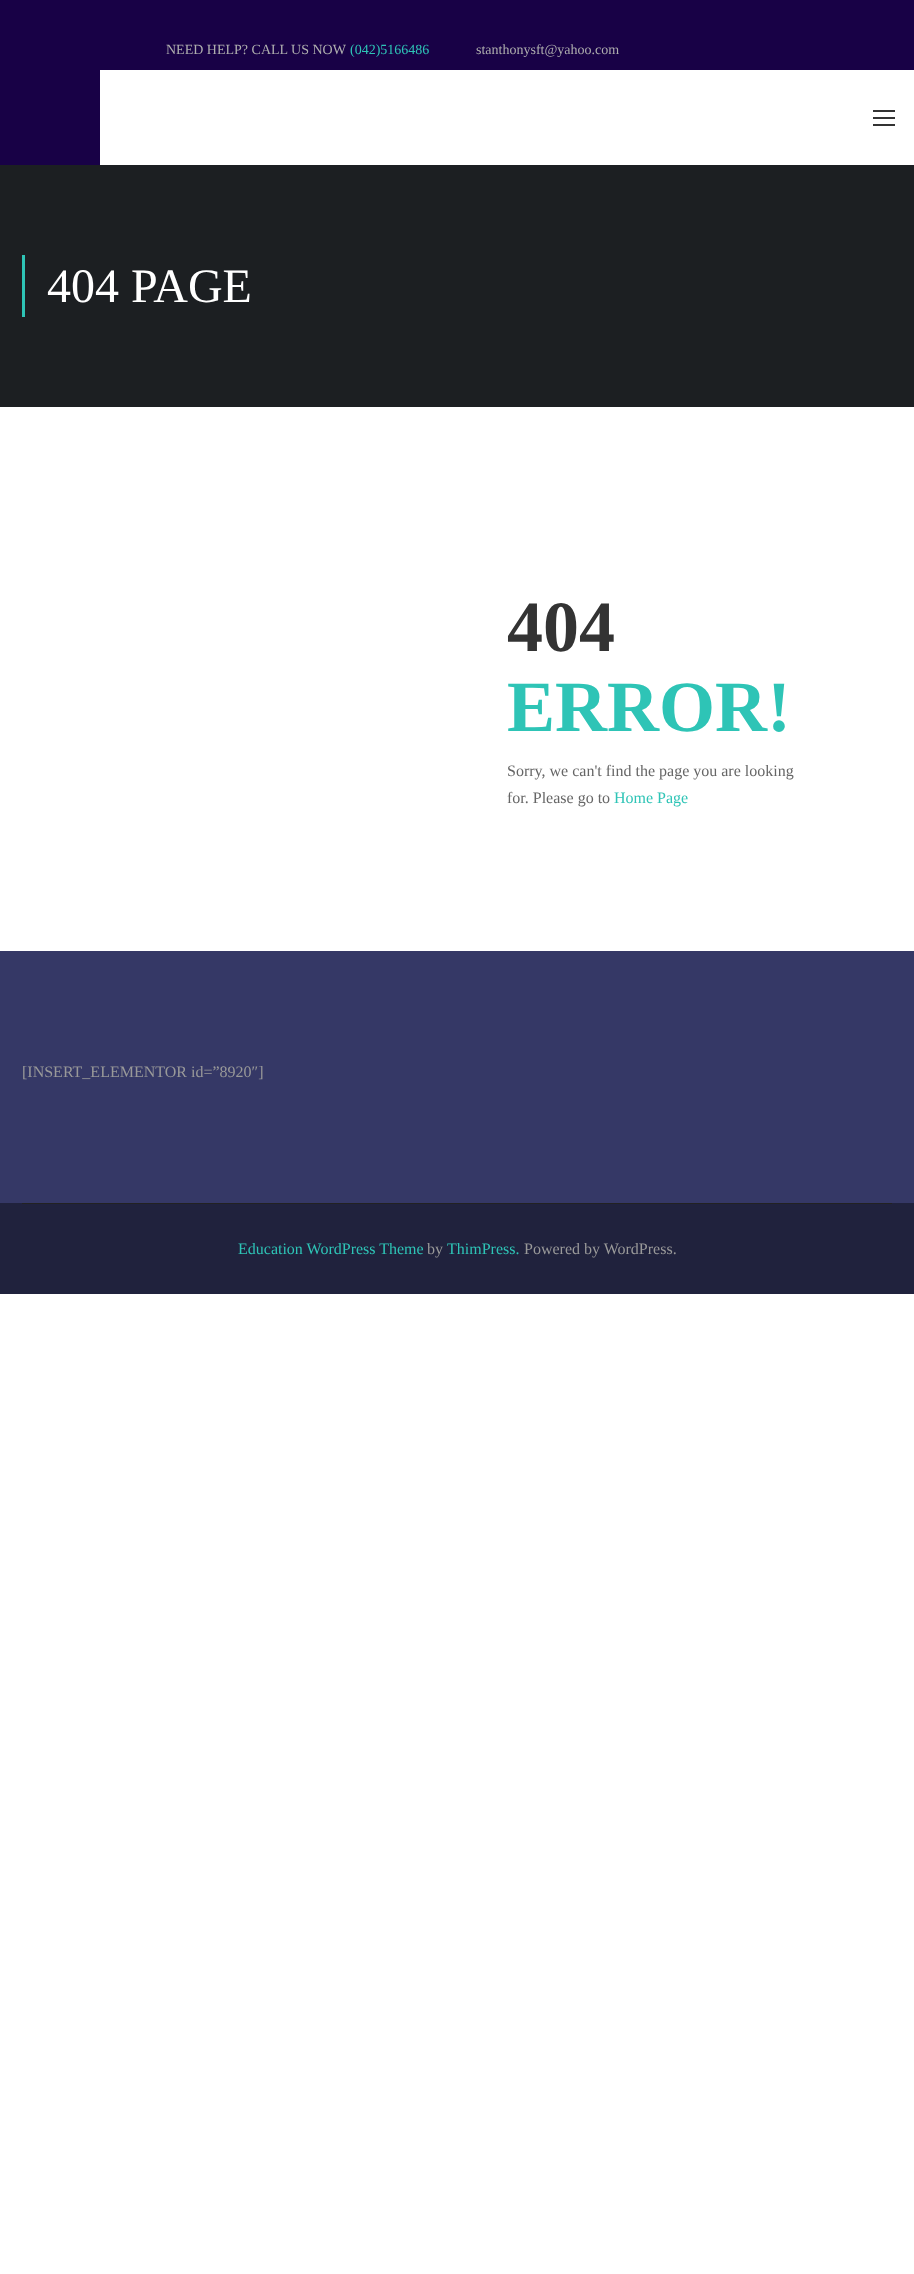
<!DOCTYPE html>
<meta charset="utf-8">
<style>body { margin: 0 } canvas { display: block }</style>
<canvas id="canvas" width="914" height="2274"></canvas>
<script type="module">
  const canvas = document.getElementById("canvas");
  const ctx = canvas.getContext("2d");
  ctx.miterLimit = 4;
  ctx.fontKerning = "normal";

  ctx.fillStyle = "#ffffff";
  ctx.fillRect(0, 0, 914, 2274);
  ctx.fillStyle = "#180146";
  ctx.fillRect(0, 0, 914, 70);
  ctx.font = "14px Liberation Serif";
  ctx.fillStyle = "#aeaeae";
  ctx.fillText("NEED HELP? CALL US NOW", 166, 54);
  ctx.fillStyle = "#2ec4b6";
  ctx.fillText("(042)5166486", 350, 54);
  ctx.fillStyle = "#aeaeae";
  ctx.fillText("stanthonysft@yahoo.com", 476, 54);
  ctx.fillStyle = "#180146";
  ctx.fillRect(0, 70, 100, 95);
  ctx.fillStyle = "#333333";
  ctx.fillRect(873, 110, 22, 2);
  ctx.fillRect(873, 117, 22, 2);
  ctx.fillRect(873, 124, 22, 2);
  ctx.fillStyle = "#1c1f22";
  ctx.fillRect(0, 165, 914, 242);
  ctx.fillStyle = "#2ec4b6";
  ctx.fillRect(22, 255, 3, 62);
  ctx.font = "48px Liberation Serif";
  ctx.fillStyle = "#ffffff";
  ctx.fillText("404 PAGE", 47, 302);
  ctx.font = "bold 72px Liberation Serif";
  ctx.fillStyle = "#333333";
  ctx.fillText("404", 507, 651);
  ctx.fillStyle = "#2ec4b6";
  ctx.fillText("ERROR!", 507, 731);
  ctx.font = "16px Liberation Serif";
  ctx.fillStyle = "#666666";
  ctx.fillText("Sorry, we can't find the page you are looking", 507, 776);
  ctx.fillText("for. Please go to", 507, 803);
  ctx.fillStyle = "#2ec4b6";
  ctx.fillText("Home Page", 614, 803);
  ctx.fillStyle = "#353866";
  ctx.fillRect(0, 951, 914, 252);
  ctx.fillStyle = "#999999";
  ctx.fillText("[INSERT_ELEMENTOR id=”8920″]", 22, 1077);
  ctx.fillStyle = "#20223d";
  ctx.fillRect(0, 1203, 914, 91);
  ctx.fillStyle = "#222222";
  ctx.fillRect(22, 1203, 870, 1);
  ctx.fillStyle = "#2ec4b6";
  ctx.fillText("Education WordPress Theme", 238, 1254);
  ctx.fillStyle = "#999999";
  ctx.fillText("by", 427, 1254);
  ctx.fillStyle = "#2ec4b6";
  ctx.fillText("ThimPress.", 447, 1254);
  ctx.fillStyle = "#999999";
  ctx.fillText("Powered by WordPress.", 524, 1254);
</script>
